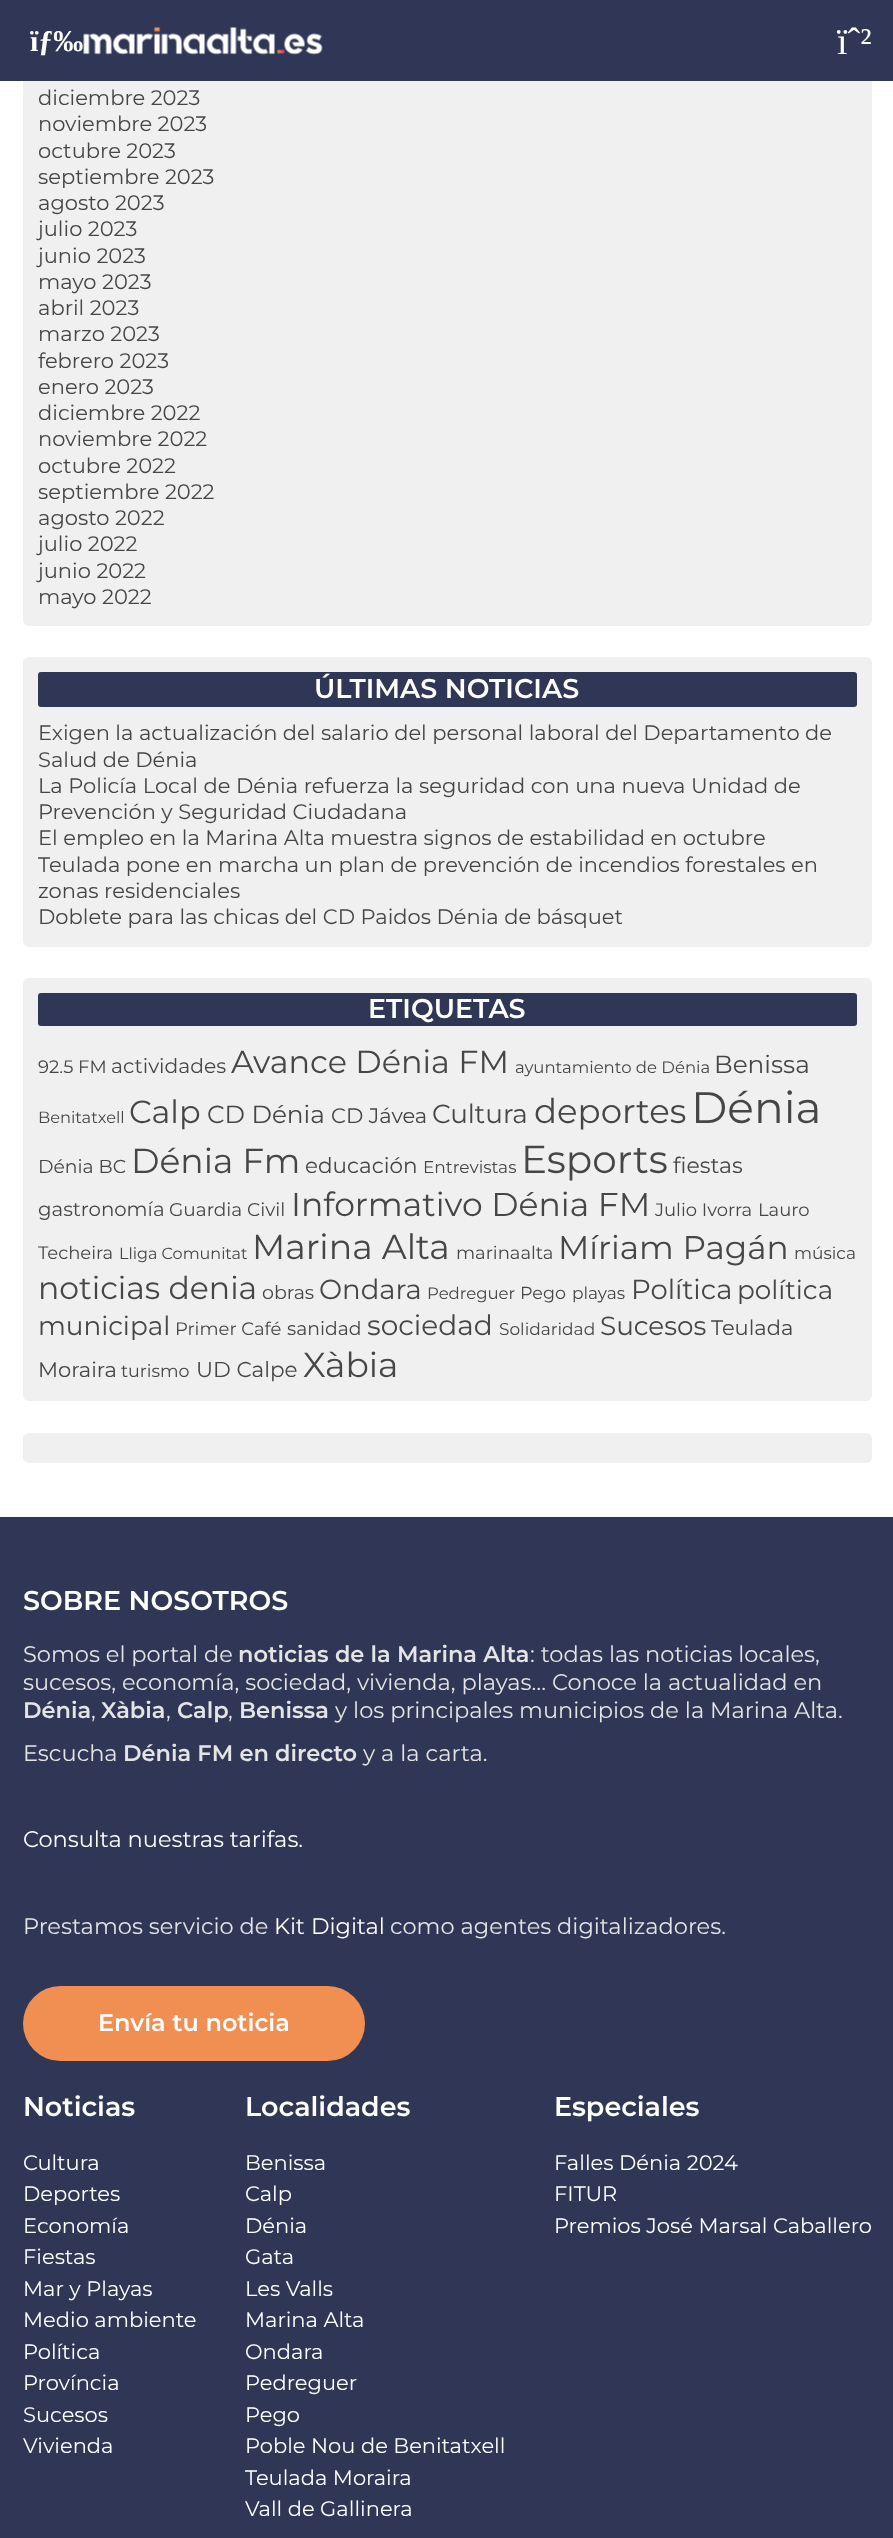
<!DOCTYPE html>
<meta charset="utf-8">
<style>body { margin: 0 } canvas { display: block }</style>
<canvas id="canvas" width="893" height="2538"></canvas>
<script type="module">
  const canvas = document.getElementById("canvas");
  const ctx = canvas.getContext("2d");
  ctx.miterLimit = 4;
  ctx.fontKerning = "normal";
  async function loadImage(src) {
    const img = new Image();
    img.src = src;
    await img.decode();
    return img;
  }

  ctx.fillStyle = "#ffffff";
  ctx.fillRect(0, 0, 893, 2538);
  ctx.fillStyle = "#f0f0f0";
  ctx.beginPath();
  ctx.roundRect(23, -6, 849, 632, 6);
  ctx.fill();
  ctx.fillStyle = "#303656";
  ctx.fillRect(0, 0, 893, 81);
  ctx.font = "bold 30px Liberation Serif";
  ctx.fillStyle = "#ffffff";
  ctx.fillText("ïƒ‰", 30, 51);
  ctx.drawImage(await loadImage("img1.png"), 83, 27, 240, 28);
  ctx.font = "38px Liberation Serif";
  ctx.fillText("ïˆ²", 837, 54);
  ctx.font = "21px Montserrat";
  ctx.fillStyle = "#464646";
  ctx.fillText("diciembre 2023", 38, 105);
  ctx.fillText("noviembre 2023", 38, 131);
  ctx.fillText("octubre 2023", 38, 158);
  ctx.fillText("septiembre 2023", 38, 184);
  ctx.fillText("agosto 2023", 38, 210);
  ctx.fillText("julio 2023", 38, 236);
  ctx.fillText("junio 2023", 38, 263);
  ctx.fillText("mayo 2023", 38, 289);
  ctx.fillText("abril 2023", 38, 315);
  ctx.fillText("marzo 2023", 38, 341);
  ctx.fillText("febrero 2023", 38, 368);
  ctx.fillText("enero 2023", 38, 394);
  ctx.fillText("diciembre 2022", 38, 420);
  ctx.fillText("noviembre 2022", 38, 446);
  ctx.fillText("octubre 2022", 38, 473);
  ctx.fillText("septiembre 2022", 38, 499);
  ctx.fillText("agosto 2022", 38, 525);
  ctx.fillText("julio 2022", 38, 551);
  ctx.fillText("junio 2022", 38, 578);
  ctx.fillText("mayo 2022", 38, 604);
  ctx.fillStyle = "#f0f0f0";
  ctx.beginPath();
  ctx.roundRect(23, 657, 849, 290, 6);
  ctx.fill();
  ctx.fillStyle = "#303656";
  ctx.beginPath();
  ctx.roundRect(38, 672, 819, 35, 3);
  ctx.fill();
  ctx.font = "600 27px Montserrat";
  ctx.fillStyle = "#ffffff";
  ctx.fillText("ÚLTIMAS NOTICIAS", 314, 698);
  ctx.font = "21px Montserrat";
  ctx.fillStyle = "#464646";
  ctx.fillText("Exigen la actualización del salario del personal laboral del Departamento de", 38, 740);
  ctx.fillText("Salud de Dénia", 38, 767);
  ctx.fillText("La Policía Local de Dénia refuerza la seguridad con una nueva Unidad de", 38, 793);
  ctx.fillText("Prevención y Seguridad Ciudadana", 38, 819);
  ctx.fillText("El empleo en la Marina Alta muestra signos de estabilidad en octubre", 38, 845);
  ctx.fillText("Teulada pone en marcha un plan de prevención de incendios forestales en", 38, 872);
  ctx.fillText("zonas residenciales", 38, 898);
  ctx.fillText("Doblete para las chicas del CD Paidos Dénia de básquet", 38, 924);
  ctx.fillStyle = "#f0f0f0";
  ctx.beginPath();
  ctx.roundRect(23, 978, 849, 423, 6);
  ctx.fill();
  ctx.fillStyle = "#303656";
  ctx.beginPath();
  ctx.roundRect(38, 993, 819, 33, 3);
  ctx.fill();
  ctx.font = "600 27px Montserrat";
  ctx.fillStyle = "#ffffff";
  ctx.fillText("ETIQUETAS", 368, 1018);
  ctx.font = "18px Montserrat";
  ctx.fillStyle = "#464646";
  ctx.fillText("92.5 FM", 38, 1073);
  ctx.font = "20.25px Montserrat";
  ctx.fillText("actividades", 111, 1073);
  ctx.font = "31.9px Montserrat";
  ctx.fillText("Avance Dénia FM", 231, 1073);
  ctx.font = "16.5px Montserrat";
  ctx.fillText("ayuntamiento de Dénia", 515, 1073);
  ctx.font = "24.75px Montserrat";
  ctx.fillText("Benissa", 714, 1073);
  ctx.font = "16.25px Montserrat";
  ctx.fillText("Benitatxell", 38, 1123);
  ctx.font = "32px Montserrat";
  ctx.fillText("Calp", 129, 1123);
  ctx.font = "24.75px Montserrat";
  ctx.fillText("CD Dénia", 207, 1123);
  ctx.font = "21px Montserrat";
  ctx.fillText("CD Jávea", 331, 1123);
  ctx.font = "26.25px Montserrat";
  ctx.fillText("Cultura", 432, 1123);
  ctx.font = "34px Montserrat";
  ctx.fillText("deportes", 534, 1123);
  ctx.font = "44px Montserrat";
  ctx.fillText("Dénia", 691, 1123);
  ctx.font = "18.75px Montserrat";
  ctx.fillText("Dénia BC", 38, 1173);
  ctx.font = "34.5px Montserrat";
  ctx.fillText("Dénia Fm", 131, 1173);
  ctx.font = "21.5px Montserrat";
  ctx.fillText("educación", 305, 1173);
  ctx.font = "17px Montserrat";
  ctx.fillText("Entrevistas", 423, 1173);
  ctx.font = "39px Montserrat";
  ctx.fillText("Esports", 521, 1173);
  ctx.font = "22px Montserrat";
  ctx.fillText("fiestas", 673, 1173);
  ctx.font = "19.75px Montserrat";
  ctx.fillText("gastronomía", 38, 1216);
  ctx.font = "18.5px Montserrat";
  ctx.fillText("Guardia Civil", 169, 1216);
  ctx.font = "33px Montserrat";
  ctx.fillText("Informativo Dénia FM", 291, 1216);
  ctx.font = "18px Montserrat";
  ctx.fillText("Julio Ivorra", 655, 1216);
  ctx.fillText("Lauro", 758, 1216);
  ctx.fillText("Techeira", 38, 1259);
  ctx.font = "16px Montserrat";
  ctx.fillText("Lliga Comunitat", 119, 1259);
  ctx.font = "34.75px Montserrat";
  ctx.fillText("Marina Alta", 252, 1259);
  ctx.font = "18px Montserrat";
  ctx.fillText("marinaalta", 456, 1259);
  ctx.font = "32.75px Montserrat";
  ctx.fillText("Míriam Pagán", 558, 1259);
  ctx.font = "17px Montserrat";
  ctx.fillText("música", 794, 1259);
  ctx.font = "31.5px Montserrat";
  ctx.fillText("noticias denia", 38, 1299);
  ctx.font = "19px Montserrat";
  ctx.fillText("obras", 262, 1299);
  ctx.font = "27.5px Montserrat";
  ctx.fillText("Ondara", 319, 1299);
  ctx.font = "16.5px Montserrat";
  ctx.fillText("Pedreguer", 427, 1299);
  ctx.font = "17.5px Montserrat";
  ctx.fillText("Pego", 520, 1299);
  ctx.font = "17px Montserrat";
  ctx.fillText("playas", 572, 1299);
  ctx.font = "27.5px Montserrat";
  ctx.fillText("Política", 631, 1299);
  ctx.font = "26.25px Montserrat";
  ctx.fillText("política", 737, 1299);
  ctx.fillText("municipal", 38, 1335);
  ctx.font = "18px Montserrat";
  ctx.fillText("Primer Café", 175, 1335);
  ctx.font = "18.75px Montserrat";
  ctx.fillText("sanidad", 287, 1335);
  ctx.font = "28px Montserrat";
  ctx.fillText("sociedad", 367, 1335);
  ctx.font = "17px Montserrat";
  ctx.fillText("Solidaridad", 499, 1335);
  ctx.font = "26.25px Montserrat";
  ctx.fillText("Sucesos", 600, 1335);
  ctx.font = "21px Montserrat";
  ctx.fillText("Teulada", 711, 1335);
  ctx.fillText("Moraira", 38, 1377);
  ctx.font = "17.5px Montserrat";
  ctx.fillText("turismo", 121, 1377);
  ctx.font = "21.5px Montserrat";
  ctx.fillText("UD Calpe", 196, 1377);
  ctx.font = "34.5px Montserrat";
  ctx.fillText("Xàbia", 303, 1377);
  ctx.fillStyle = "#f0f0f0";
  ctx.beginPath();
  ctx.roundRect(23, 1433, 849, 30, 6);
  ctx.fill();
  ctx.fillStyle = "#303656";
  ctx.fillRect(0, 1517, 893, 1021);
  ctx.font = "600 27px Montserrat";
  ctx.fillStyle = "#ffffff";
  ctx.fillText("SOBRE NOSOTROS", 23, 1610);
  ctx.font = "22.5px Montserrat";
  ctx.fillStyle = "#e4e4e4";
  ctx.fillText("Somos el portal de", 23, 1662);
  ctx.font = "600 22.5px Montserrat";
  ctx.fillText("noticias de la Marina Alta", 238, 1662);
  ctx.font = "22.5px Montserrat";
  ctx.fillText(": todas las noticias locales,", 530, 1662);
  ctx.fillText("sucesos, economía, sociedad, vivienda, playas… Conoce la actualidad en", 23, 1690);
  ctx.font = "600 22.5px Montserrat";
  ctx.fillText("Dénia", 23, 1718);
  ctx.font = "22.5px Montserrat";
  ctx.fillText(",", 91, 1718);
  ctx.font = "600 22.5px Montserrat";
  ctx.fillText("Xàbia", 101, 1718);
  ctx.font = "22.5px Montserrat";
  ctx.fillText(",", 166, 1718);
  ctx.font = "600 22.5px Montserrat";
  ctx.fillText("Calp", 177, 1718);
  ctx.font = "22.5px Montserrat";
  ctx.fillText(",", 228, 1718);
  ctx.font = "600 22.5px Montserrat";
  ctx.fillText("Benissa", 239, 1718);
  ctx.font = "22.5px Montserrat";
  ctx.fillText("y los principales municipios de la Marina Alta.", 335, 1718);
  ctx.fillText("Escucha", 23, 1761);
  ctx.font = "600 22.5px Montserrat";
  ctx.fillText("Dénia FM en directo", 123, 1761);
  ctx.font = "22.5px Montserrat";
  ctx.fillText("y a la carta.", 363, 1761);
  ctx.fillStyle = "#ffffff";
  ctx.fillText("Consulta nuestras tarifas.", 23, 1847);
  ctx.fillStyle = "#e4e4e4";
  ctx.fillText("Prestamos servicio de", 23, 1934);
  ctx.fillStyle = "#ffffff";
  ctx.fillText("Kit Digital", 274, 1934);
  ctx.fillStyle = "#e4e4e4";
  ctx.fillText("como agentes digitalizadores.", 390, 1934);
  ctx.fillStyle = "#f18e52";
  ctx.beginPath();
  ctx.roundRect(23, 1986, 342, 75, 37.5);
  ctx.fill();
  ctx.font = "600 24px Montserrat";
  ctx.fillStyle = "#ffffff";
  ctx.fillText("Envía tu noticia", 98, 2031);
  ctx.font = "600 27px Montserrat";
  ctx.fillText("Noticias", 23, 2116);
  ctx.font = "21px Montserrat";
  ctx.fillText("Cultura", 23, 2170);
  ctx.fillText("Deportes", 23, 2201);
  ctx.fillText("Economía", 23, 2233);
  ctx.fillText("Fiestas", 23, 2264);
  ctx.fillText("Mar y Playas", 23, 2296);
  ctx.fillText("Medio ambiente", 23, 2327);
  ctx.fillText("Política", 23, 2359);
  ctx.fillText("Província", 23, 2390);
  ctx.fillText("Sucesos", 23, 2422);
  ctx.fillText("Vivienda", 23, 2453);
  ctx.font = "600 27px Montserrat";
  ctx.fillText("Localidades", 245, 2116);
  ctx.font = "21px Montserrat";
  ctx.fillText("Benissa", 245, 2170);
  ctx.fillText("Calp", 245, 2201);
  ctx.fillText("Dénia", 245, 2233);
  ctx.fillText("Gata", 245, 2264);
  ctx.fillText("Les Valls", 245, 2296);
  ctx.fillText("Marina Alta", 245, 2327);
  ctx.fillText("Ondara", 245, 2359);
  ctx.fillText("Pedreguer", 245, 2390);
  ctx.fillText("Pego", 245, 2422);
  ctx.fillText("Poble Nou de Benitatxell", 245, 2453);
  ctx.fillText("Teulada Moraira", 245, 2485);
  ctx.fillText("Vall de Gallinera", 245, 2516);
  ctx.font = "600 27px Montserrat";
  ctx.fillText("Especiales", 554, 2116);
  ctx.font = "21px Montserrat";
  ctx.fillText("Falles Dénia 2024", 554, 2170);
  ctx.fillText("FITUR", 554, 2201);
  ctx.fillText("Premios José Marsal Caballero", 554, 2233);
</script>
